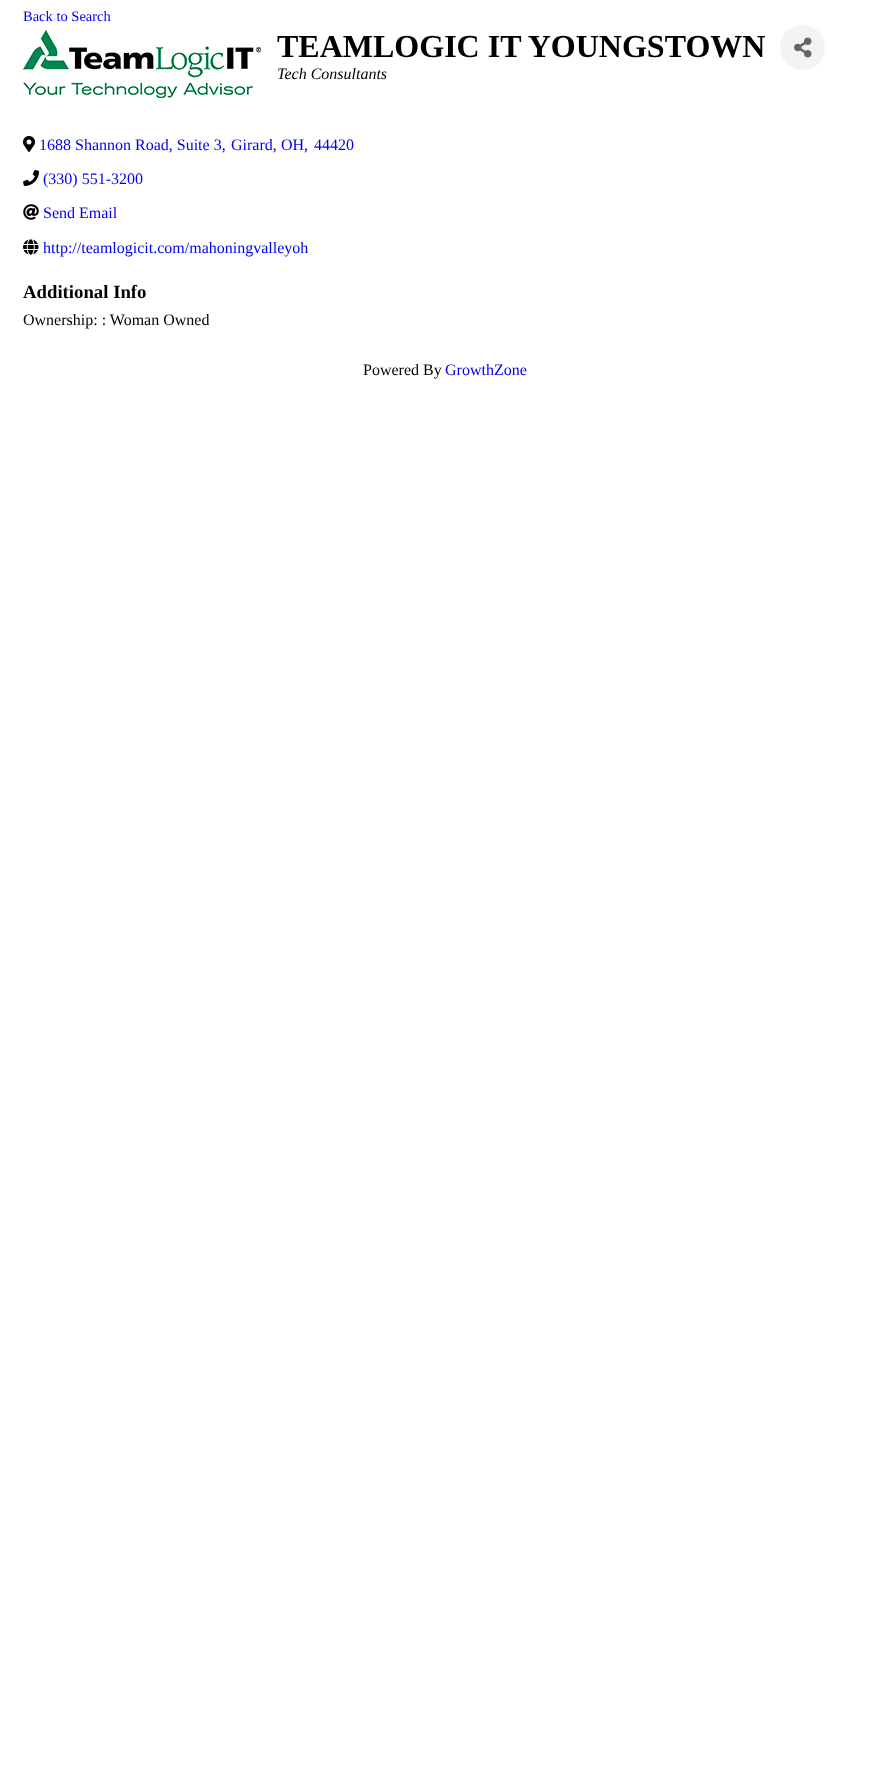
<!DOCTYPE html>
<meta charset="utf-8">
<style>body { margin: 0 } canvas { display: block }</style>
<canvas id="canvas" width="890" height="1774"></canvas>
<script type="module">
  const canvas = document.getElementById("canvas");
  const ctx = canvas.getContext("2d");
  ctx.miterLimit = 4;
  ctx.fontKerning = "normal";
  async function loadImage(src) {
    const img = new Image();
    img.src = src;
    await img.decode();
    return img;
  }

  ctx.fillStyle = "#ffffff";
  ctx.fillRect(0, 0, 890, 1774);
  ctx.font = "14.5px Liberation Serif";
  ctx.fillStyle = "#0000ee";
  ctx.fillText("Back to Search", 23, 21);
  ctx.drawImage(await loadImage("img1.png"), 23, 30, 238, 68);
  ctx.font = "bold 32px Liberation Serif";
  ctx.fillStyle = "#000000";
  ctx.fillText("TEAMLOGIC IT YOUNGSTOWN", 277, 57);
  ctx.font = "italic 16px Liberation Serif";
  ctx.fillText("Tech Consultants", 277, 79);
  ctx.fillStyle = "#f3f3f3";
  ctx.beginPath();
  ctx.arc(802.5, 47.5, 22.5, 0, Math.PI * 2);
  ctx.fill();
  ctx.drawImage(await loadImage("img2.png"), 794, 37, 18, 21);
  ctx.drawImage(await loadImage("img3.png"), 23, 136, 12, 16);
  ctx.font = "16px Liberation Serif";
  ctx.fillStyle = "#0000ee";
  ctx.fillText("1688 Shannon Road, Suite 3,", 39, 150);
  ctx.fillText("Girard,", 231, 150);
  ctx.fillText("OH,", 281, 150);
  ctx.fillText("44420", 314, 150);
  ctx.drawImage(await loadImage("img4.png"), 23, 170, 16, 16);
  ctx.fillText("(330) 551-3200", 43, 184);
  ctx.drawImage(await loadImage("img5.png"), 23, 204, 16, 16);
  ctx.fillText("Send Email", 43, 218);
  ctx.drawImage(await loadImage("img6.png"), 23, 239, 16, 16);
  ctx.fillText("http://teamlogicit.com/mahoningvalleyoh", 43, 253);
  ctx.font = "bold 18.75px Liberation Serif";
  ctx.fillStyle = "#000000";
  ctx.fillText("Additional Info", 23, 298);
  ctx.font = "16px Liberation Serif";
  ctx.fillText("Ownership: : Woman Owned", 23, 325);
  ctx.fillText("Powered By", 363, 375);
  ctx.fillStyle = "#0000ee";
  ctx.fillText("GrowthZone", 445, 375);
</script>
